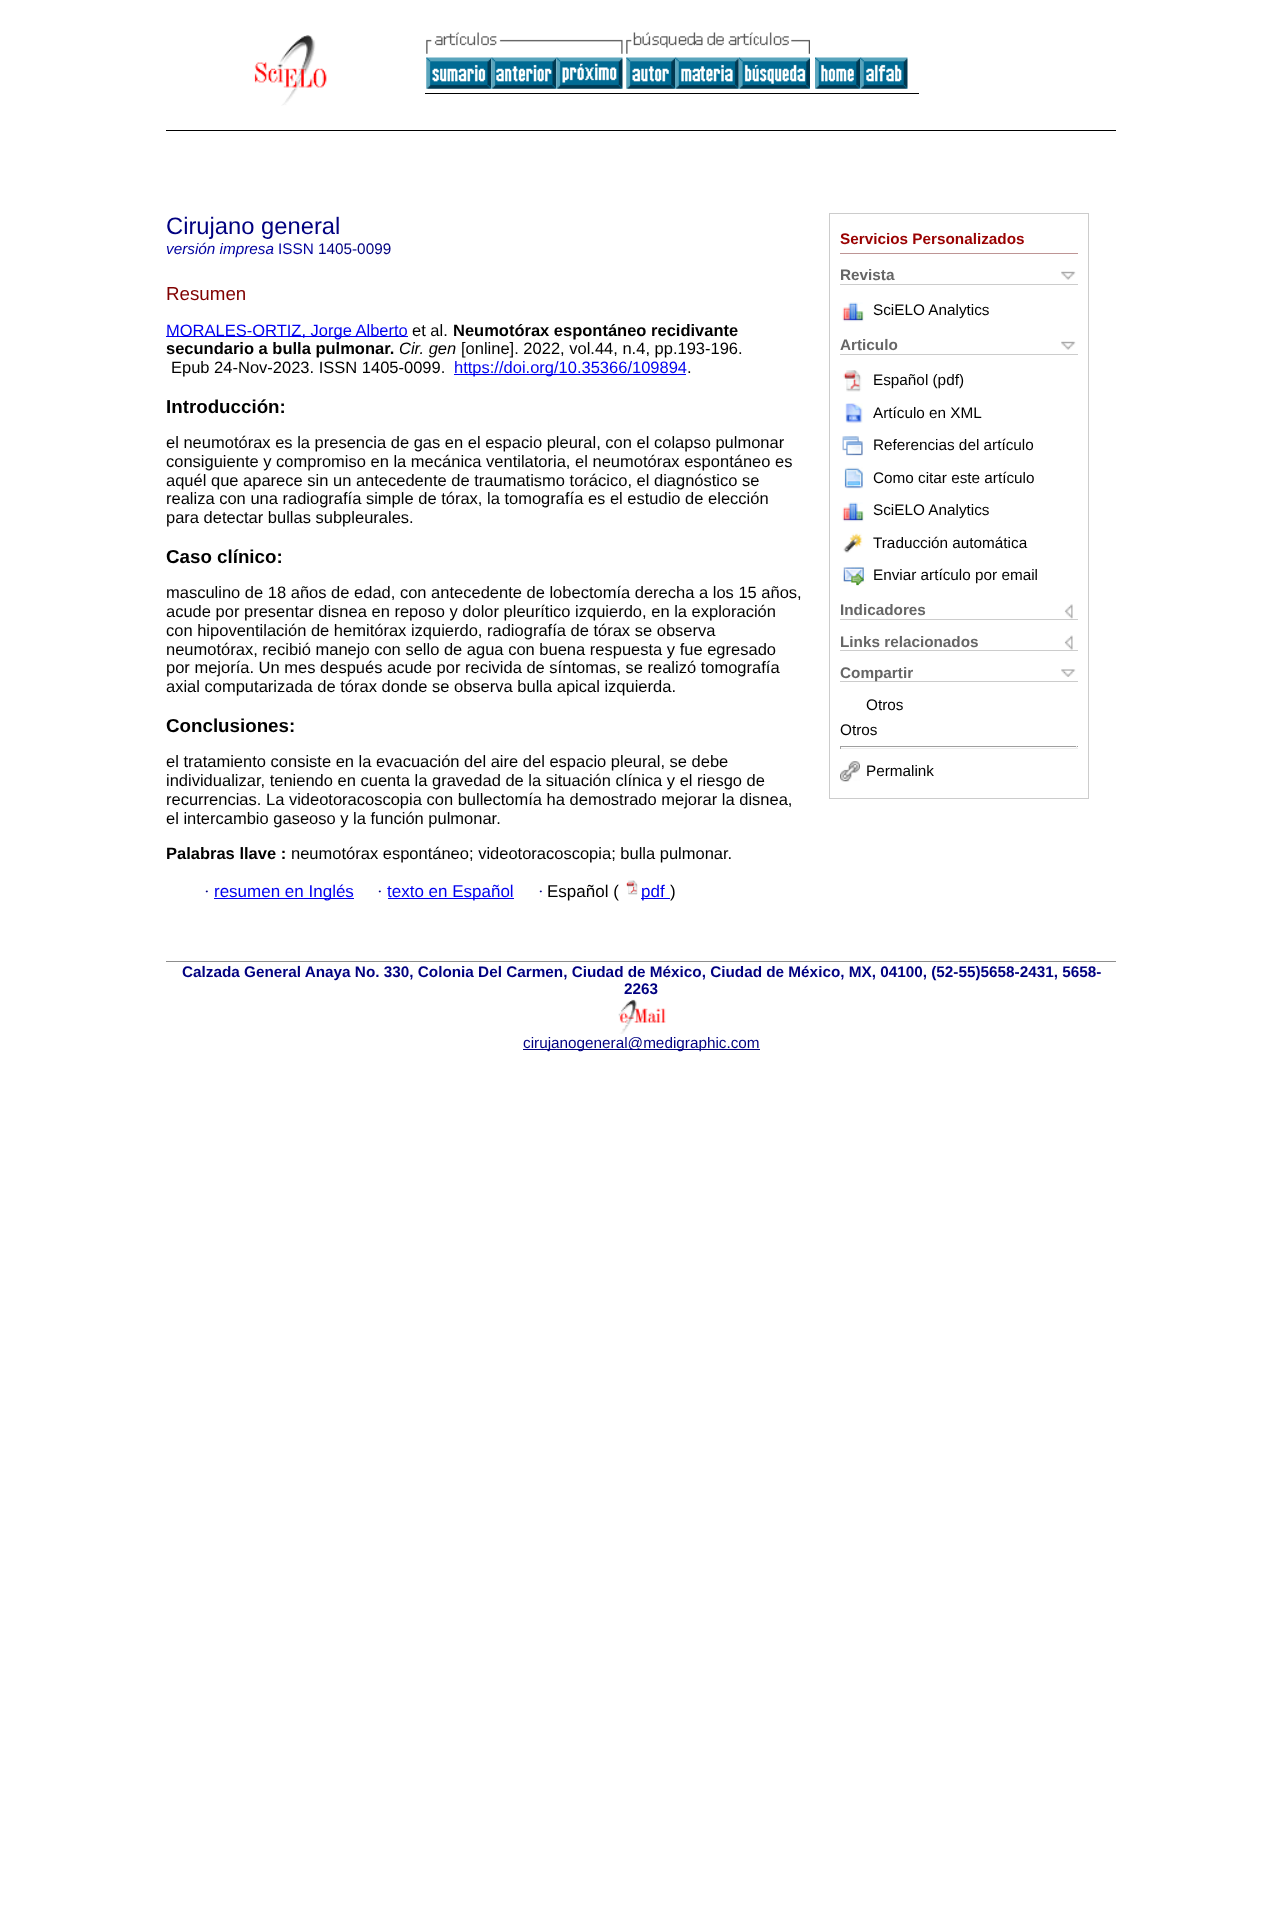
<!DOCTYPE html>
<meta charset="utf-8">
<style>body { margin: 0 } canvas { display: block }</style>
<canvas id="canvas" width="1282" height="1931"></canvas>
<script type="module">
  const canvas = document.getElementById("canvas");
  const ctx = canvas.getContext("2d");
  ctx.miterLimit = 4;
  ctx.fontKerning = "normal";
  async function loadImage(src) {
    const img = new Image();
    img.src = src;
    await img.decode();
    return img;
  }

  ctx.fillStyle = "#ffffff";
  ctx.fillRect(0, 0, 1282, 1931);
  ctx.fillStyle = "#000000";
  ctx.fillRect(166, 130, 950, 1);
  ctx.drawImage(await loadImage("img1.png"), 254, 35, 73, 71);
  ctx.fillRect(425, 93, 494, 1);
  ctx.drawImage(await loadImage("img2.png"), 426, 32, 197, 22);
  ctx.drawImage(await loadImage("img3.png"), 626, 32, 184, 22);
  ctx.drawImage(await loadImage("img4.png"), 426, 57, 66, 32);
  ctx.drawImage(await loadImage("img5.png"), 491, 57, 66, 32);
  ctx.drawImage(await loadImage("img6.png"), 556, 57, 67, 32);
  ctx.drawImage(await loadImage("img7.png"), 626, 57, 49, 32);
  ctx.drawImage(await loadImage("img8.png"), 675, 57, 64, 32);
  ctx.drawImage(await loadImage("img9.png"), 738, 57, 72, 32);
  ctx.drawImage(await loadImage("img10.png"), 815, 57, 45, 32);
  ctx.drawImage(await loadImage("img11.png"), 860, 57, 48, 32);
  ctx.fillStyle = "#8d8d8d";
  ctx.fillRect(166, 961, 950, 1);
  ctx.font = "23.75px Liberation Sans";
  ctx.fillStyle = "#000080";
  ctx.fillText("Cirujano general", 166, 234);
  ctx.font = "italic 15.3px Liberation Sans";
  ctx.fillStyle = "#0000a0";
  ctx.fillText("versión impresa", 166, 254);
  ctx.font = "15.3px Liberation Sans";
  ctx.fillText("ISSN", 278, 254);
  ctx.fillStyle = "#000080";
  ctx.fillText("1405-0099", 318, 254);
  ctx.strokeStyle = "#cccccc";
  ctx.strokeRect(829.5, 213.5, 259, 585);
  ctx.fillStyle = "#be9595";
  ctx.fillRect(840, 253, 238, 1);
  ctx.font = "bold 15.3px Liberation Sans";
  ctx.fillStyle = "#990000";
  ctx.fillText("Servicios Personalizados", 840, 244);
  ctx.drawImage(await loadImage("img12.png"), 1061, 271, 15, 9);
  ctx.fillStyle = "#cccccc";
  ctx.fillRect(840, 284, 238, 1);
  ctx.fillStyle = "#666666";
  ctx.fillText("Revista", 840, 280);
  ctx.drawImage(await loadImage("img13.png"), 842, 302, 22, 20);
  ctx.font = "15.3px Liberation Sans";
  ctx.fillStyle = "#000000";
  ctx.fillText("SciELO Analytics", 873, 315);
  ctx.drawImage(await loadImage("img12.png"), 1061, 341, 15, 9);
  ctx.fillStyle = "#cccccc";
  ctx.fillRect(840, 354, 238, 1);
  ctx.font = "bold 15.3px Liberation Sans";
  ctx.fillStyle = "#666666";
  ctx.fillText("Articulo", 840, 350);
  ctx.drawImage(await loadImage("img14.png"), 843, 370, 19, 22);
  ctx.font = "15.3px Liberation Sans";
  ctx.fillStyle = "#000000";
  ctx.fillText("Español (pdf)", 873, 385);
  ctx.drawImage(await loadImage("img15.png"), 845, 403, 18, 21);
  ctx.fillText("Artículo en XML", 873, 418);
  ctx.drawImage(await loadImage("img16.png"), 842, 436, 21, 20);
  ctx.fillText("Referencias del artículo", 873, 450);
  ctx.drawImage(await loadImage("img17.png"), 844, 467, 20, 22);
  ctx.fillText("Como citar este artículo", 873, 483);
  ctx.drawImage(await loadImage("img13.png"), 842, 502, 22, 20);
  ctx.fillText("SciELO Analytics", 873, 515);
  ctx.drawImage(await loadImage("img18.png"), 843, 533, 20, 20);
  ctx.fillText("Traducción automática", 873, 548);
  ctx.drawImage(await loadImage("img19.png"), 840, 566, 26, 20);
  ctx.fillText("Enviar artículo por email", 873, 580);
  ctx.drawImage(await loadImage("img20.png"), 1064, 604, 9, 15);
  ctx.fillStyle = "#cccccc";
  ctx.fillRect(840, 619, 238, 1);
  ctx.font = "bold 15.3px Liberation Sans";
  ctx.fillStyle = "#666666";
  ctx.fillText("Indicadores", 840, 615);
  ctx.drawImage(await loadImage("img21.png"), 1064, 635, 9, 15);
  ctx.fillStyle = "#cccccc";
  ctx.fillRect(840, 650, 238, 1);
  ctx.fillStyle = "#666666";
  ctx.fillText("Links relacionados", 840, 647);
  ctx.drawImage(await loadImage("img22.png"), 1061, 669, 15, 8);
  ctx.fillStyle = "#cccccc";
  ctx.fillRect(840, 681, 238, 1);
  ctx.fillStyle = "#666666";
  ctx.fillText("Compartir", 840, 678);
  ctx.font = "15.3px Liberation Sans";
  ctx.fillStyle = "#000000";
  ctx.fillText("Otros", 866, 710);
  ctx.fillText("Otros", 840, 735);
  ctx.fillStyle = "#9f9f9f";
  ctx.fillRect(840, 746, 238, 1);
  ctx.fillStyle = "#eeeeee";
  ctx.fillRect(1076, 746, 1, 3);
  ctx.fillRect(840, 748, 238, 1);
  ctx.fillStyle = "#9f9f9f";
  ctx.fillRect(840, 746, 1, 3);
  ctx.drawImage(await loadImage("img23.png"), 840, 761, 20, 21);
  ctx.fillStyle = "#000000";
  ctx.fillText("Permalink", 866, 776);
  ctx.font = "18.75px Liberation Sans";
  ctx.fillStyle = "#800000";
  ctx.fillText("Resumen", 166, 300);
  ctx.fillStyle = "#0000ee";
  ctx.fillRect(166, 336, 242, 1);
  ctx.font = "16.5px Liberation Sans";
  ctx.fillText("MORALES-ORTIZ, Jorge Alberto", 166, 336);
  ctx.fillStyle = "#000000";
  ctx.fillText("et al.", 412, 336);
  ctx.font = "bold 16.5px Liberation Sans";
  ctx.fillText("Neumotórax espontáneo recidivante", 453, 336);
  ctx.fillText("secundario a bulla pulmonar.", 166, 354);
  ctx.font = "italic 16.5px Liberation Sans";
  ctx.fillText("Cir. gen", 399, 354);
  ctx.font = "16.5px Liberation Sans";
  ctx.fillText("[online]. 2022, vol.44, n.4, pp.193-196.", 461, 354);
  ctx.fillText("Epub 24-Nov-2023. ISSN 1405-0099.", 171, 373);
  ctx.fillStyle = "#0000ee";
  ctx.fillRect(454, 374, 232, 1);
  ctx.fillText("https://doi.org/10.35366/109894", 454, 373);
  ctx.fillStyle = "#000000";
  ctx.fillText(".", 687, 373);
  ctx.font = "bold 18.75px Liberation Sans";
  ctx.fillText("Introducción:", 166, 413);
  ctx.font = "16.5px Liberation Sans";
  ctx.fillText("el neumotórax es la presencia de gas en el espacio pleural, con el colapso pulmonar", 166, 448);
  ctx.fillText("consiguiente y compromiso en la mecánica ventilatoria, el neumotórax espontáneo es", 166, 467);
  ctx.fillText("aquél que aparece sin un antecedente de traumatismo torácico, el diagnóstico se", 166, 486);
  ctx.fillText("realiza con una radiografía simple de tórax, la tomografía es el estudio de elección", 166, 504);
  ctx.fillText("para detectar bullas subpleurales.", 166, 523);
  ctx.font = "bold 18.75px Liberation Sans";
  ctx.fillText("Caso clínico:", 166, 563);
  ctx.font = "16.5px Liberation Sans";
  ctx.fillText("masculino de 18 años de edad, con antecedente de lobectomía derecha a los 15 años,", 166, 598);
  ctx.fillText("acude por presentar disnea en reposo y dolor pleurítico izquierdo, en la exploración", 166, 617);
  ctx.fillText("con hipoventilación de hemitórax izquierdo, radiografía de tórax se observa", 166, 636);
  ctx.fillText("neumotórax, recibió manejo con sello de agua con buena respuesta y fue egresado", 166, 655);
  ctx.fillText("por mejoría. Un mes después acude por recivida de síntomas, se realizó tomografía", 166, 673);
  ctx.fillText("axial computarizada de tórax donde se observa bulla apical izquierda.", 166, 692);
  ctx.font = "bold 18.75px Liberation Sans";
  ctx.fillText("Conclusiones:", 166, 732);
  ctx.font = "16.5px Liberation Sans";
  ctx.fillText("el tratamiento consiste en la evacuación del aire del espacio pleural, se debe", 166, 767);
  ctx.fillText("individualizar, teniendo en cuenta la gravedad de la situación clínica y el riesgo de", 166, 786);
  ctx.fillText("recurrencias. La videotoracoscopia con bullectomía ha demostrado mejorar la disnea,", 166, 805);
  ctx.fillText("el intercambio gaseoso y la función pulmonar.", 166, 824);
  ctx.font = "bold 16.5px Liberation Sans";
  ctx.fillText("Palabras llave :", 166, 859);
  ctx.font = "16.5px Liberation Sans";
  ctx.fillText("neumotórax espontáneo; videotoracoscopia; bulla pulmonar.", 291, 859);
  ctx.font = "17px Liberation Serif";
  ctx.fillStyle = "#000080";
  ctx.fillText("·", 204, 897);
  ctx.fillStyle = "#0000ee";
  ctx.fillRect(214, 898, 140, 1);
  ctx.font = "17px Liberation Sans";
  ctx.fillText("resumen en Inglés", 214, 897);
  ctx.font = "17px Liberation Serif";
  ctx.fillStyle = "#000080";
  ctx.fillText("·", 377, 897);
  ctx.fillStyle = "#0000ee";
  ctx.fillRect(388, 898, 126, 1);
  ctx.font = "17px Liberation Sans";
  ctx.fillText("texto en Español", 387, 897);
  ctx.font = "17px Liberation Serif";
  ctx.fillStyle = "#000080";
  ctx.fillText("·", 538, 897);
  ctx.font = "17px Liberation Sans";
  ctx.fillStyle = "#000000";
  ctx.fillText("Español (", 547, 897);
  ctx.drawImage(await loadImage("img24.png"), 626, 880, 12, 15);
  ctx.fillStyle = "#0000ee";
  ctx.fillRect(641, 898, 29, 1);
  ctx.fillText("pdf", 641, 897);
  ctx.fillStyle = "#000000";
  ctx.fillText(")", 670, 897);
  ctx.font = "bold 15.3px Liberation Sans";
  ctx.fillStyle = "#000080";
  ctx.fillText("Calzada General Anaya No. 330, Colonia Del Carmen, Ciudad de México, Ciudad de México, MX, 04100, (52-55)5658-2431, 5658-", 182, 977);
  ctx.fillText("2263", 624, 994);
  ctx.drawImage(await loadImage("img25.png"), 618, 999, 48, 35);
  ctx.fillRect(523, 1049, 237, 1);
  ctx.font = "15.3px Liberation Sans";
  ctx.fillText("cirujanogeneral@medigraphic.com", 523, 1048);
</script>
